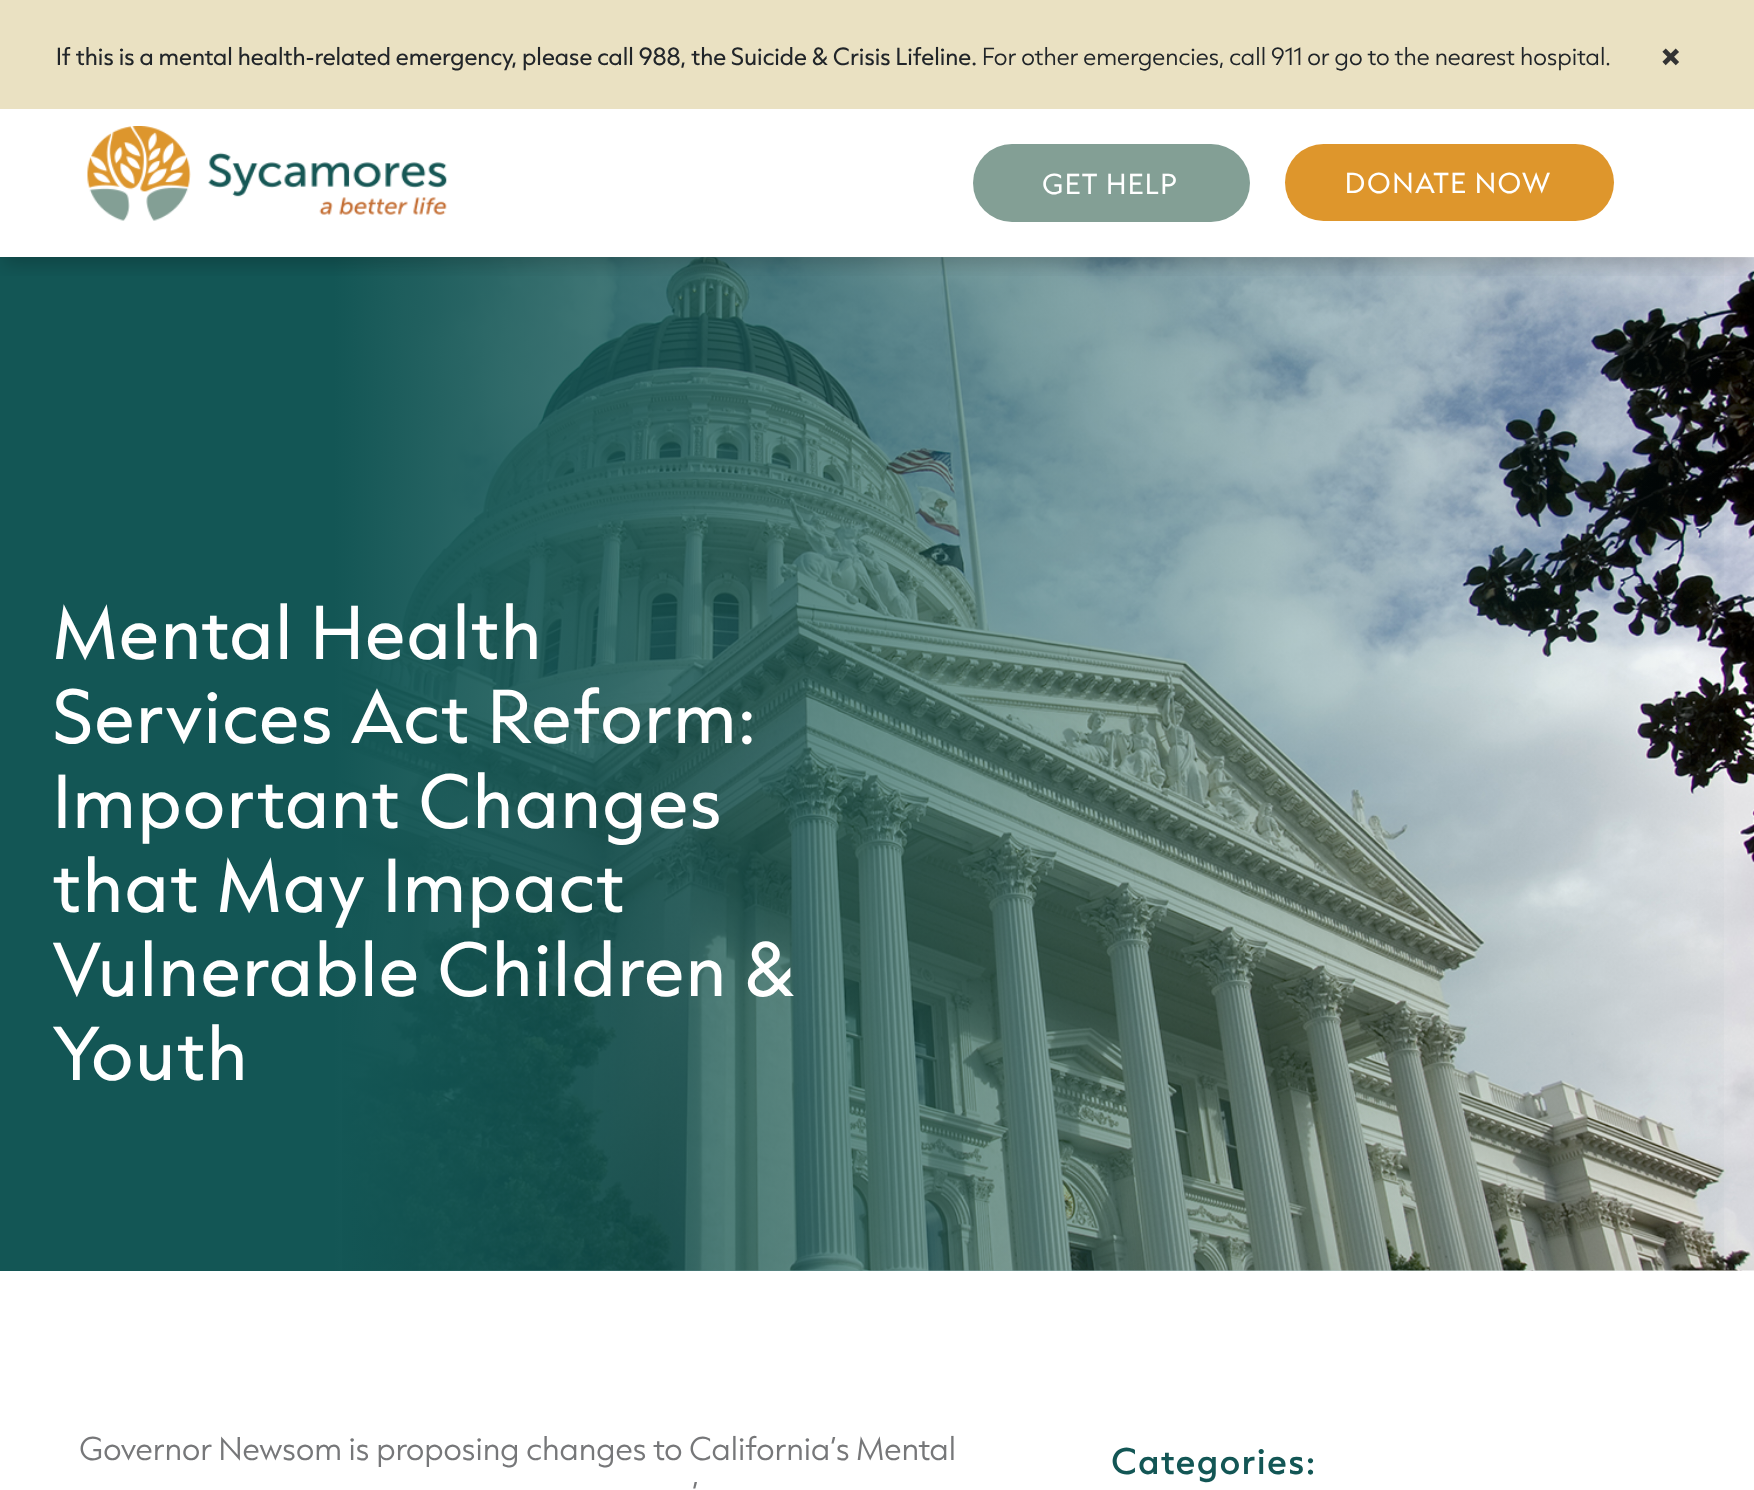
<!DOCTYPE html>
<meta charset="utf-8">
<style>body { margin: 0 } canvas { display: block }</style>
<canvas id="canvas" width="1754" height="1490"></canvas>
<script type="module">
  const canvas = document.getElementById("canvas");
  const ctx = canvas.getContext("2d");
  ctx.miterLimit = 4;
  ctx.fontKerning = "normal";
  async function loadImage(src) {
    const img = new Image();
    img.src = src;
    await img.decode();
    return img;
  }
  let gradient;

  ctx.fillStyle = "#ffffff";
  ctx.fillRect(0, 0, 1754, 1490);
  ctx.fillStyle = "#eae1c2";
  ctx.fillRect(0, 0, 1754, 109);
  ctx.font = "21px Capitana";
  ctx.fillStyle = "#212529";
  ctx.fillText("If this is a mental health-related emergency, please call 988, the Suicide & Crisis Lifeline.", 56, 65);
  ctx.font = "300 21px Capitana";
  ctx.fillText("For other emergencies, call 911 or go to the nearest hospital.", 982, 65);
  ctx.font = "bold 31.5px Capitana";
  ctx.fillStyle = "#333333";
  ctx.fillText("×", 1660, 70);
  ctx.drawImage(await loadImage("img2.png"), 342, 257, 1412, 1014);
  gradient = ctx.createLinearGradient(0, 764, 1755, 764);
  gradient.addColorStop(0.19, "#135655");
  gradient.addColorStop(1, "rgba(19, 86, 85, 0)");
  ctx.fillStyle = gradient;
  ctx.fillRect(0, 257, 1724, 1014);
  ctx.save();
  ctx.beginPath();
  ctx.rect(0, 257, 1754, 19);
  ctx.clip();
  ctx.fillStyle = "rgba(0, 0, 0, 0.2)";
  ctx.filter = "blur(9px)";
  ctx.beginPath();
  ctx.rect(4, 123, 1748, 141);
  ctx.fill();
  ctx.filter = "none";
  ctx.restore();
  ctx.drawImage(await loadImage("img1.png"), 87, 126, 360, 95);
  ctx.fillStyle = "#839f95";
  ctx.beginPath();
  ctx.roundRect(973, 144, 277, 78, 39);
  ctx.fill();
  ctx.letterSpacing = "1.75px";
  ctx.font = "24.5px Capitana";
  ctx.fillStyle = "#ffffff";
  ctx.fillText("GET HELP", 1042, 194);
  ctx.fillStyle = "#de962c";
  ctx.beginPath();
  ctx.roundRect(1285, 144, 329, 77, 38.5);
  ctx.fill();
  ctx.fillStyle = "#ffffff";
  ctx.fillText("DONATE NOW", 1345, 193);
  ctx.font = "64.75px Capitana";
  ctx.fillText("Mental Health", 53, 659);
  ctx.fillText("Services Act Reform:", 53, 743);
  ctx.fillText("Important Changes", 53, 828);
  ctx.fillText("that May Impact", 53, 912);
  ctx.fillText("Vulnerable Children &", 53, 996);
  ctx.fillText("Youth", 53, 1080);
  ctx.letterSpacing = "0px";
  ctx.font = "300 28px Capitana";
  ctx.fillStyle = "#767779";
  ctx.fillText("Governor Newsom is proposing changes to California’s Mental", 79, 1460);
  ctx.fillText("’", 692, 1505);
  ctx.letterSpacing = "1.75px";
  ctx.font = "500 31.5px Capitana";
  ctx.fillStyle = "#135655";
  ctx.fillText("Categories:", 1111, 1474);
</script>
